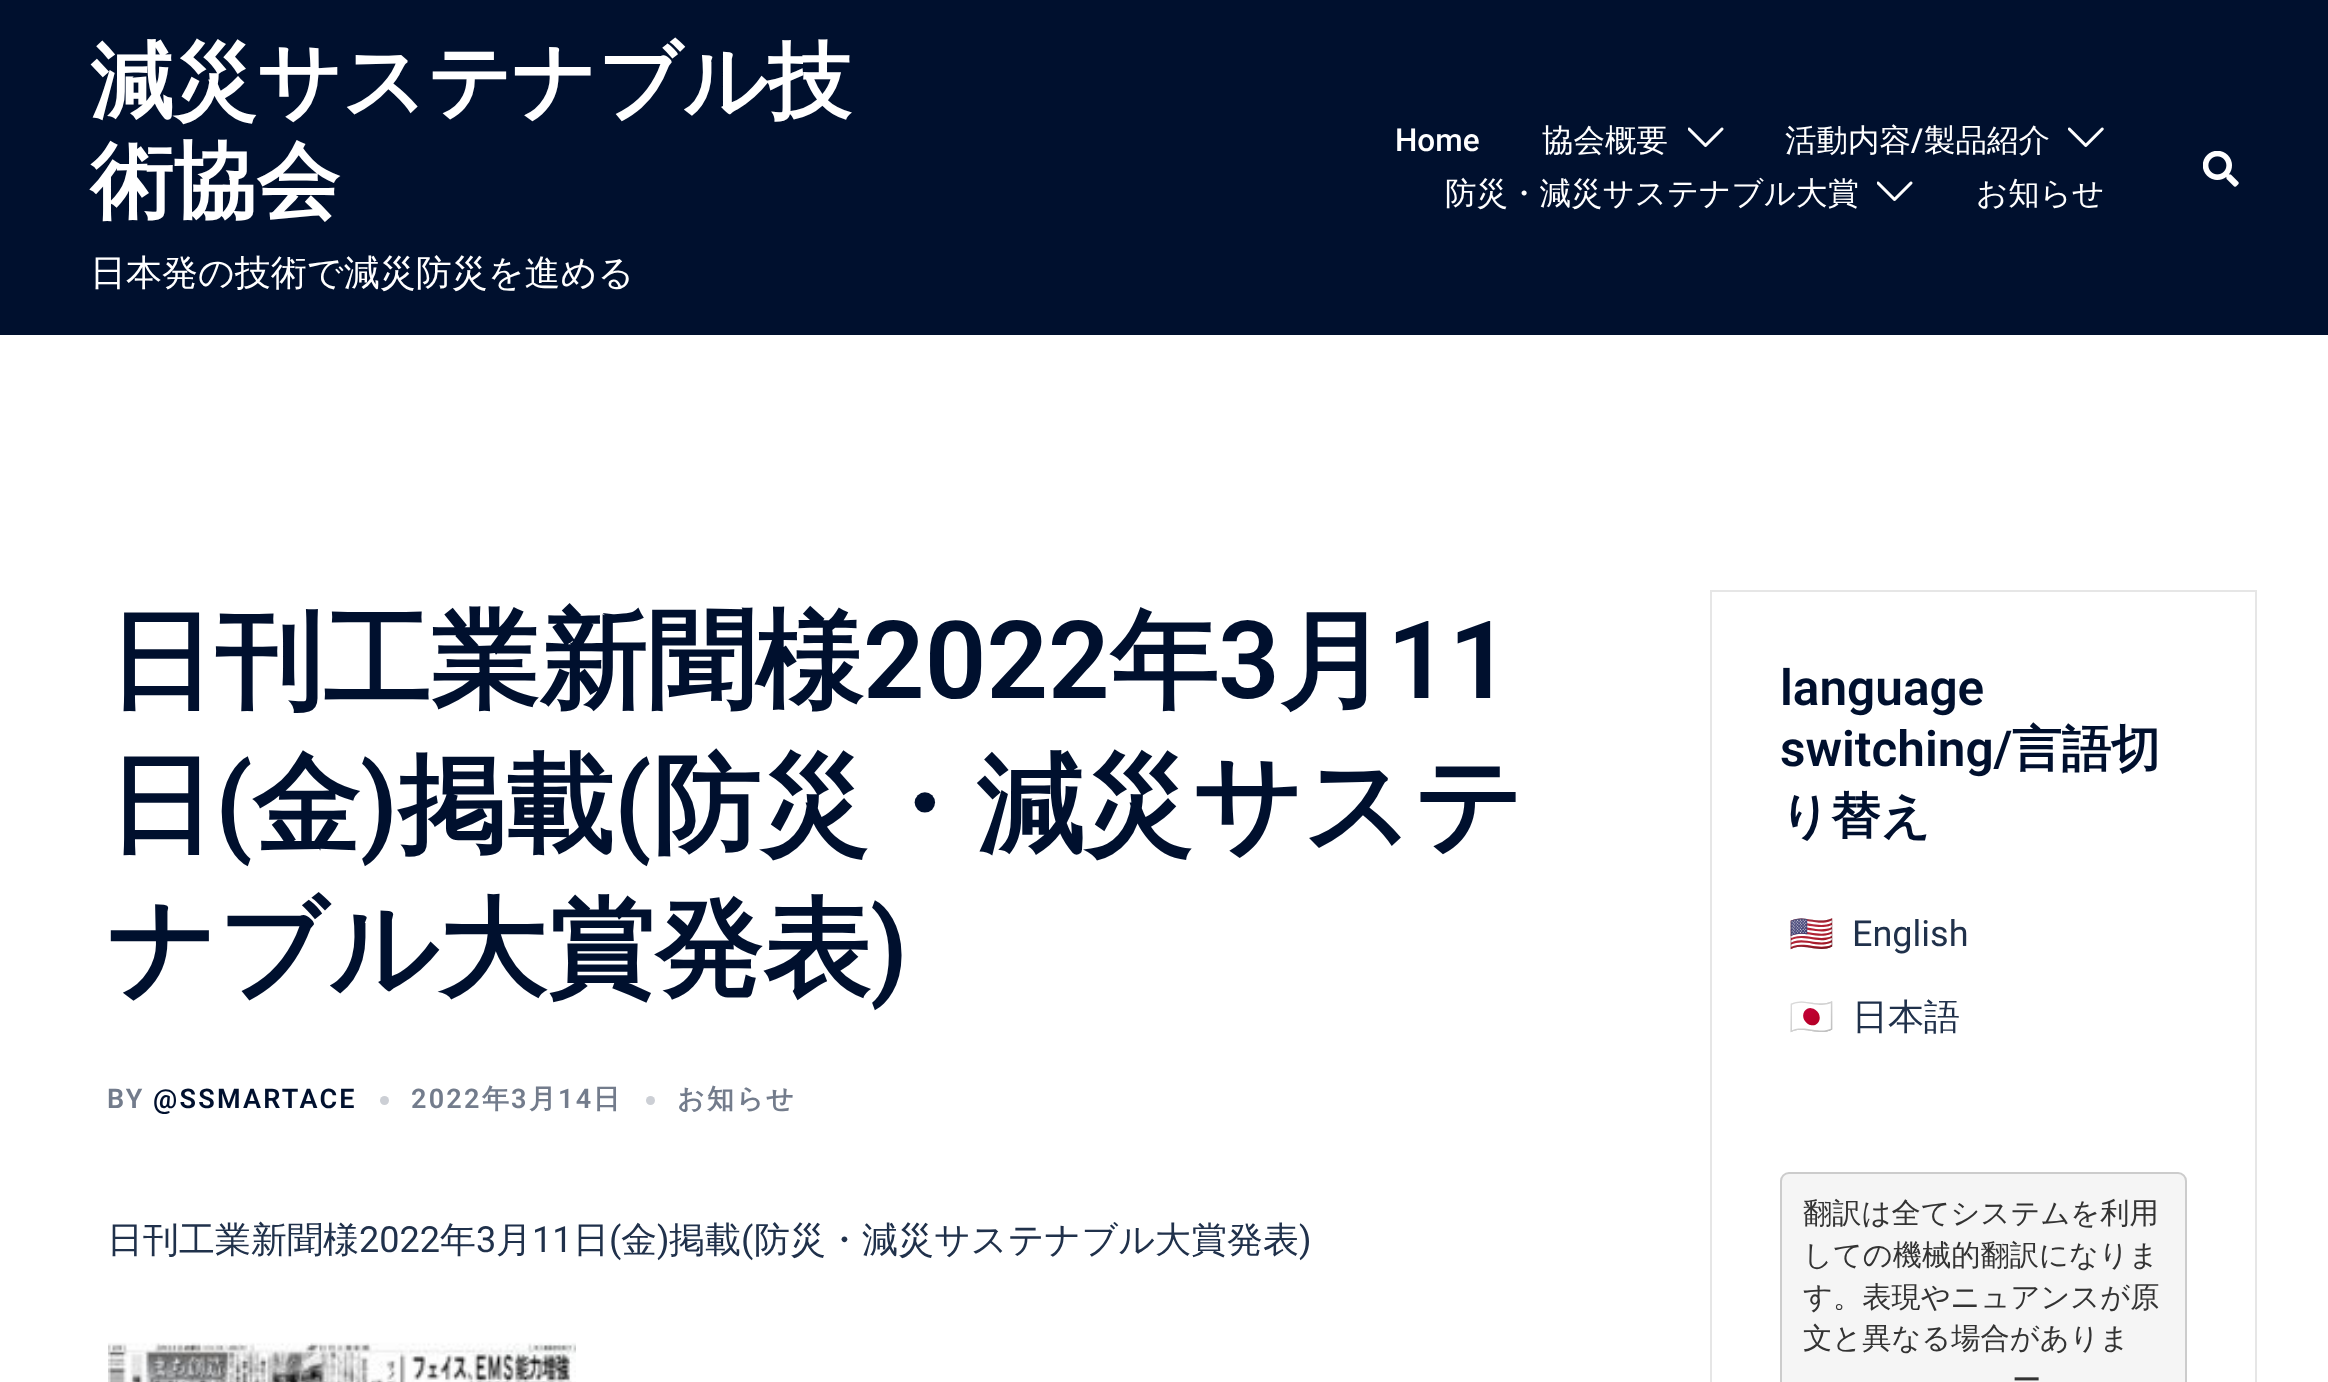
<!DOCTYPE html>
<meta charset="utf-8">
<style>body { margin: 0 } canvas { display: block }</style>
<canvas id="canvas" width="2328" height="1382"></canvas>
<script type="module">
  const canvas = document.getElementById("canvas");
  const ctx = canvas.getContext("2d");
  ctx.miterLimit = 4;
  ctx.fontKerning = "normal";
  async function loadImage(src) {
    const img = new Image();
    img.src = src;
    await img.decode();
    return img;
  }

  ctx.fillStyle = "#ffffff";
  ctx.fillRect(0, 0, 2328, 1382);
  ctx.fillStyle = "#00102e";
  ctx.fillRect(0, 0, 2328, 335);
  ctx.font = "bold 83.25px WenQuanYi Zen Hei";
  ctx.fillStyle = "#ffffff";
  ctx.fillText("減災サステナブル技", 90, 110);
  ctx.fillText("術協会", 90, 210);
  ctx.font = "500 36px WenQuanYi Zen Hei";
  ctx.fillText("日本発の技術で減災防災を進める", 90, 285);
  ctx.font = "500 31.5px Roboto";
  ctx.fillText("Home", 1395, 151);
  ctx.font = "500 31.5px WenQuanYi Zen Hei";
  ctx.fillText("協会概要", 1542, 151);
  ctx.drawImage(await loadImage("img1.png"), 1688, 127, 36, 20);
  ctx.fillText("活動内容", 1785, 151);
  ctx.font = "500 31.5px Roboto";
  ctx.fillText("/", 1911, 151);
  ctx.font = "500 31.5px WenQuanYi Zen Hei";
  ctx.fillText("製品紹介", 1924, 151);
  ctx.drawImage(await loadImage("img2.png"), 2068, 127, 36, 20);
  ctx.fillText("防災・減災サステナブル大賞", 1445, 204);
  ctx.drawImage(await loadImage("img1.png"), 1877, 181, 36, 20);
  ctx.fillText("お知らせ", 1976, 204);
  ctx.drawImage(await loadImage("img3.png"), 2203, 151, 36, 36);
  ctx.font = "bold 108px WenQuanYi Zen Hei";
  ctx.fillStyle = "#00102e";
  ctx.fillText("日刊工業新聞様", 107, 698);
  ctx.font = "600 108px Roboto";
  ctx.fillText("2022", 863, 698);
  ctx.font = "bold 108px WenQuanYi Zen Hei";
  ctx.fillText("年", 1110, 698);
  ctx.font = "600 108px Roboto";
  ctx.fillText("3", 1218, 698);
  ctx.font = "bold 108px WenQuanYi Zen Hei";
  ctx.fillText("月", 1279, 698);
  ctx.font = "600 108px Roboto";
  ctx.fillText("11", 1387, 698);
  ctx.font = "bold 108px WenQuanYi Zen Hei";
  ctx.fillText("日", 107, 842);
  ctx.font = "600 108px Roboto";
  ctx.fillText("(", 215, 842);
  ctx.font = "bold 108px WenQuanYi Zen Hei";
  ctx.fillText("金", 252, 842);
  ctx.font = "600 108px Roboto";
  ctx.fillText(")", 360, 842);
  ctx.font = "bold 108px WenQuanYi Zen Hei";
  ctx.fillText("掲載", 398, 842);
  ctx.font = "600 108px Roboto";
  ctx.fillText("(", 614, 842);
  ctx.font = "bold 108px WenQuanYi Zen Hei";
  ctx.fillText("防災・減災サステ", 652, 842);
  ctx.fillText("ナブル大賞発表", 107, 986);
  ctx.font = "600 108px Roboto";
  ctx.fillText(")", 870, 986);
  ctx.letterSpacing = "2.25px";
  ctx.font = "600 27px Roboto";
  ctx.fillStyle = "#737c8c";
  ctx.fillText("BY", 107, 1108);
  ctx.fillStyle = "#00102e";
  ctx.fillText("@SSMARTACE", 153, 1108);
  ctx.fillStyle = "#cccfd5";
  ctx.beginPath();
  ctx.arc(384.5, 1100.5, 4.5, 0, Math.PI * 2);
  ctx.fill();
  ctx.fillStyle = "#737c8c";
  ctx.fillText("2022", 411, 1108);
  ctx.font = "bold 27px WenQuanYi Zen Hei";
  ctx.fillText("年", 482, 1108);
  ctx.font = "600 27px Roboto";
  ctx.fillText("3", 511, 1108);
  ctx.font = "bold 27px WenQuanYi Zen Hei";
  ctx.fillText("月", 529, 1108);
  ctx.font = "600 27px Roboto";
  ctx.fillText("14", 558, 1108);
  ctx.font = "bold 27px WenQuanYi Zen Hei";
  ctx.fillText("日", 593, 1108);
  ctx.fillStyle = "#cccfd5";
  ctx.beginPath();
  ctx.arc(650.5, 1100.5, 4.5, 0, Math.PI * 2);
  ctx.fill();
  ctx.fillStyle = "#737c8c";
  ctx.fillText("お知らせ", 677, 1108);
  ctx.letterSpacing = "0px";
  ctx.font = "500 36px WenQuanYi Zen Hei";
  ctx.fillStyle = "#20314b";
  ctx.fillText("日刊工業新聞様", 107, 1252);
  ctx.font = "36px Roboto";
  ctx.fillText("2022", 359, 1252);
  ctx.font = "500 36px WenQuanYi Zen Hei";
  ctx.fillText("年", 440, 1252);
  ctx.font = "36px Roboto";
  ctx.fillText("3", 476, 1252);
  ctx.font = "500 36px WenQuanYi Zen Hei";
  ctx.fillText("月", 496, 1252);
  ctx.font = "36px Roboto";
  ctx.fillText("11", 532, 1252);
  ctx.font = "500 36px WenQuanYi Zen Hei";
  ctx.fillText("日", 573, 1252);
  ctx.font = "36px Roboto";
  ctx.fillText("(", 609, 1252);
  ctx.font = "500 36px WenQuanYi Zen Hei";
  ctx.fillText("金", 621, 1252);
  ctx.font = "36px Roboto";
  ctx.fillText(")", 657, 1252);
  ctx.font = "500 36px WenQuanYi Zen Hei";
  ctx.fillText("掲載", 669, 1252);
  ctx.font = "36px Roboto";
  ctx.fillText("(", 741, 1252);
  ctx.font = "500 36px WenQuanYi Zen Hei";
  ctx.fillText("防災・減災サステナブル大賞発表", 754, 1252);
  ctx.font = "36px Roboto";
  ctx.fillText(")", 1299, 1252);
  ctx.drawImage(await loadImage("img4.png"), 108, 1342, 468, 40);
  ctx.strokeStyle = "#e6e6e6";
  ctx.lineWidth = 2;
  ctx.strokeRect(1711, 591, 545, 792);
  ctx.font = "600 49.5px Roboto";
  ctx.fillStyle = "#00102e";
  ctx.fillText("language", 1780, 705);
  ctx.fillText("switching/", 1780, 766);
  ctx.font = "bold 49.5px WenQuanYi Zen Hei";
  ctx.fillText("言語切", 2012, 766);
  ctx.fillText("り替え", 1780, 833);
  ctx.font = "36px Noto Color Emoji";
  ctx.fillStyle = "#20314b";
  ctx.fillText("🇺🇸", 1789, 946);
  ctx.font = "36px Roboto";
  ctx.fillText("English", 1852, 946);
  ctx.font = "36px Noto Color Emoji";
  ctx.fillText("🇯🇵", 1789, 1029);
  ctx.font = "500 36px WenQuanYi Zen Hei";
  ctx.fillText("日本語", 1852, 1029);
  ctx.fillStyle = "#f5f5f5";
  ctx.beginPath();
  ctx.roundRect(1781, 1173, 405, 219, 8);
  ctx.fill();
  ctx.strokeStyle = "#cccccc";
  ctx.stroke();
  ctx.font = "500 29.25px WenQuanYi Zen Hei";
  ctx.fillStyle = "#333333";
  ctx.fillText("翻訳は全てシステムを利用", 1803, 1223);
  ctx.fillText("しての機械的翻訳になりま", 1803, 1265);
  ctx.fillText("す。表現やニュアンスが原", 1803, 1307);
  ctx.fillText("文と異なる場合がありま", 1803, 1348);
  ctx.fillText("ー", 2012, 1390);
</script>
